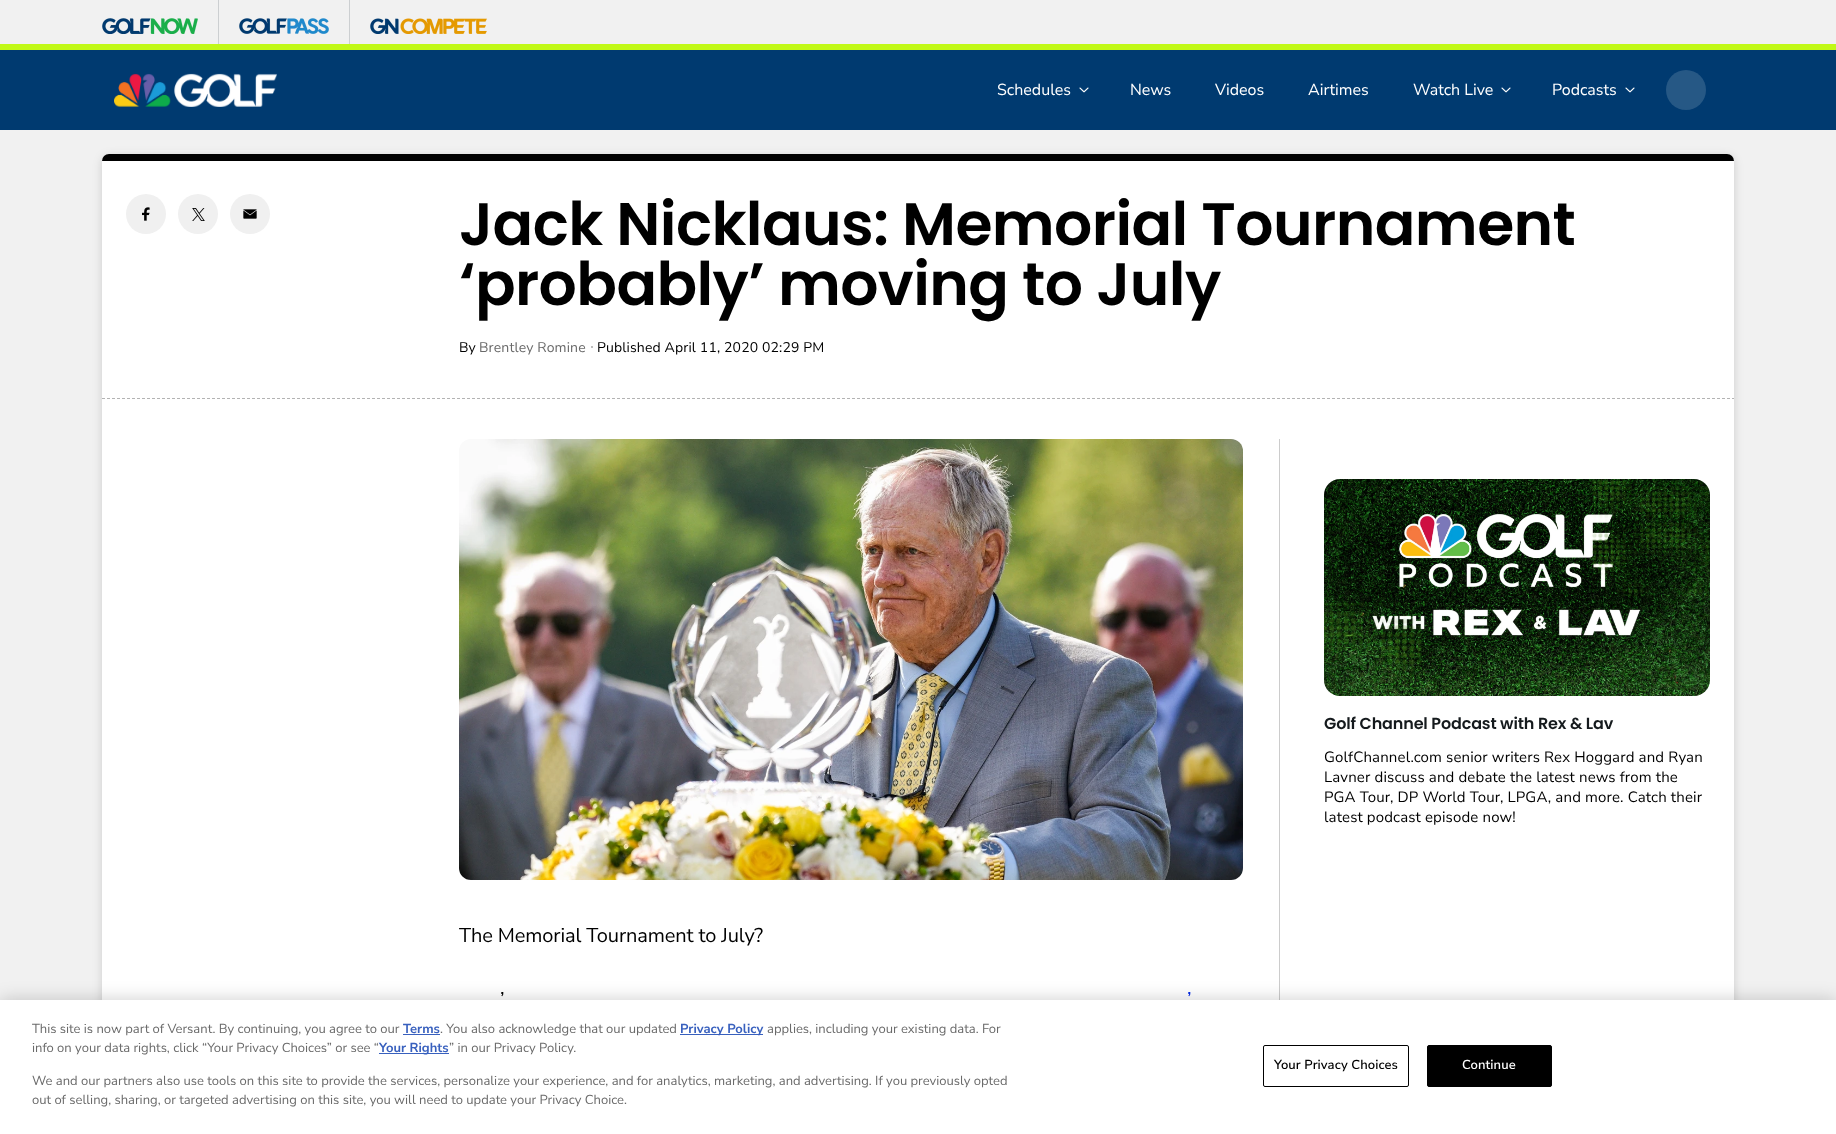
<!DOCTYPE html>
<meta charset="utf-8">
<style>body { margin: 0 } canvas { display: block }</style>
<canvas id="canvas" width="1836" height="1134"></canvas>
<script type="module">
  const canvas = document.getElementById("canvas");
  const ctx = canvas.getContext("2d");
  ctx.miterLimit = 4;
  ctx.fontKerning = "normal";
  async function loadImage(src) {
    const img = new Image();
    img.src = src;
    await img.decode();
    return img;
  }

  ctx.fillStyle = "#f1f1f1";
  ctx.fillRect(0, 0, 1836, 1134);
  ctx.fillStyle = "#c1f917";
  ctx.fillRect(0, 44, 1836, 6);
  ctx.fillStyle = "#cccfd1";
  ctx.fillRect(218, 0, 1, 44);
  ctx.drawImage(await loadImage("img1.png"), 102, 18, 96, 16);
  ctx.fillRect(349, 0, 1, 44);
  ctx.drawImage(await loadImage("img2.png"), 239, 18, 90, 16);
  ctx.drawImage(await loadImage("img3.png"), 370, 18, 117, 16);
  ctx.fillStyle = "#003a70";
  ctx.fillRect(0, 50, 1836, 80);
  ctx.drawImage(await loadImage("img4.png"), 114, 73, 163, 34);
  ctx.font = "16px Nunito Sans";
  ctx.fillStyle = "#ffffff";
  ctx.fillText("Schedules", 997, 95);
  ctx.drawImage(await loadImage("img5.png"), 1079, 87, 10, 6);
  ctx.fillText("News", 1130, 95);
  ctx.fillText("Videos", 1215, 95);
  ctx.fillText("Airtimes", 1308, 95);
  ctx.fillText("Watch Live", 1413, 95);
  ctx.drawImage(await loadImage("img5.png"), 1501, 87, 10, 6);
  ctx.fillText("Podcasts", 1552, 95);
  ctx.drawImage(await loadImage("img5.png"), 1625, 87, 10, 6);
  ctx.fillStyle = "#265885";
  ctx.beginPath();
  ctx.arc(1686, 90, 20, 0, Math.PI * 2);
  ctx.fill();
  ctx.fillStyle = "rgba(0, 0, 0, 0.15)";
  ctx.filter = "blur(5px)";
  ctx.beginPath();
  ctx.roundRect(102, 156, 1632, 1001, 8);
  ctx.fill();
  ctx.filter = "none";
  ctx.fillStyle = "#ffffff";
  ctx.beginPath();
  ctx.roundRect(102, 154, 1632, 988, 8);
  ctx.fill();
  ctx.fillStyle = "#000000";
  ctx.beginPath();
  ctx.roundRect(102, 154, 1632, 7, [7, 7, 0, 0]);
  ctx.fill();
  ctx.beginPath();
  ctx.moveTo(102, 398.5);
  ctx.lineTo(1734, 398.5);
  ctx.strokeStyle = "#b3b3b3";
  ctx.setLineDash([3, 2]);
  ctx.stroke();
  ctx.fillStyle = "#f0f0f0";
  ctx.beginPath();
  ctx.arc(146, 214, 20, 0, Math.PI * 2);
  ctx.fill();
  ctx.drawImage(await loadImage("img6.png"), 142, 207, 8, 14);
  ctx.beginPath();
  ctx.arc(198, 214, 20, 0, Math.PI * 2);
  ctx.fill();
  ctx.drawImage(await loadImage("img7.png"), 192, 208, 13, 13);
  ctx.beginPath();
  ctx.arc(250, 214, 20, 0, Math.PI * 2);
  ctx.fill();
  ctx.drawImage(await loadImage("img8.png"), 243, 209, 14, 10);
  ctx.letterSpacing = "-0.6px";
  ctx.font = "600 60px Poppins";
  ctx.fillStyle = "#000000";
  ctx.fillText("Jack Nicklaus: Memorial Tournament", 459, 245);
  ctx.fillText("‘probably’ moving to July", 459, 305);
  ctx.letterSpacing = "0.15px";
  ctx.font = "14px Nunito Sans";
  ctx.fillText("By", 459, 352);
  ctx.fillStyle = "#6a6a6a";
  ctx.fillText("Brentley Romine", 479, 352);
  ctx.beginPath();
  ctx.arc(592, 347, 0.8, 0, Math.PI * 2);
  ctx.fill();
  ctx.fillStyle = "#000000";
  ctx.fillText("Published April 11, 2020 02:29 PM", 597, 352);
  ctx.fillStyle = "#cccccc";
  ctx.fillRect(1279, 439, 1, 561);
  ctx.drawImage(await loadImage("img9.png"), 1324, 479, 386, 217);
  ctx.letterSpacing = "-0.15px";
  ctx.font = "600 16px Poppins";
  ctx.fillStyle = "#151a1d";
  ctx.fillText("Golf Channel Podcast with Rex & Lav", 1324, 729);
  ctx.letterSpacing = "0.15px";
  ctx.font = "15px Nunito Sans";
  ctx.fillStyle = "#000000";
  ctx.fillText("GolfChannel.com senior writers Rex Hoggard and Ryan", 1324, 762);
  ctx.fillText("Lavner discuss and debate the latest news from the", 1324, 782);
  ctx.fillText("PGA Tour, DP World Tour, LPGA, and more. Catch their", 1324, 802);
  ctx.fillText("latest podcast episode now!", 1324, 822);
  ctx.drawImage(await loadImage("img10.png"), 459, 439, 784, 441);
  ctx.letterSpacing = "-0.1px";
  ctx.font = "20px Nunito Sans";
  ctx.fillText("The Memorial Tournament to July?", 459, 942);
  ctx.fillText("’", 500, 1006);
  ctx.fillStyle = "#0329e7";
  ctx.fillText("’", 1187, 1006);
  ctx.fillStyle = "rgba(0, 0, 0, 0.2)";
  ctx.filter = "blur(9px)";
  ctx.beginPath();
  ctx.rect(0, 1000, 1836, 134);
  ctx.fill();
  ctx.filter = "none";
  ctx.fillStyle = "#ffffff";
  ctx.fillRect(0, 1000, 1836, 134);
  ctx.letterSpacing = "0px";
  ctx.font = "13px Nunito Sans";
  ctx.fillStyle = "#6a6a6a";
  ctx.fillText("This site is now part of Versant. By continuing, you agree to our", 32, 1033);
  ctx.font = "bold 13px Nunito Sans";
  ctx.fillStyle = "#3860be";
  ctx.fillText("Terms", 403, 1033);
  ctx.fillRect(403, 1034, 37, 1);
  ctx.font = "13px Nunito Sans";
  ctx.fillStyle = "#6a6a6a";
  ctx.fillText(". You also acknowledge that our updated", 440, 1033);
  ctx.fillStyle = "#3860be";
  ctx.fillRect(680, 1034, 83, 1);
  ctx.font = "bold 13px Nunito Sans";
  ctx.fillText("Privacy Policy", 680, 1033);
  ctx.font = "13px Nunito Sans";
  ctx.fillStyle = "#6a6a6a";
  ctx.fillText("applies, including your existing data. For", 767, 1033);
  ctx.fillText("info on your data rights, click “Your Privacy Choices” or see “", 32, 1052);
  ctx.fillStyle = "#3860be";
  ctx.fillRect(379, 1053, 70, 1);
  ctx.font = "bold 13px Nunito Sans";
  ctx.fillText("Your Rights", 379, 1052);
  ctx.font = "13px Nunito Sans";
  ctx.fillStyle = "#6a6a6a";
  ctx.fillText("” in our Privacy Policy.", 449, 1052);
  ctx.fillText("We and our partners also use tools on this site to provide the services, personalize your experience, and for analytics, marketing, and advertising. If you previously opted", 32, 1085);
  ctx.fillText("out of selling, sharing, or targeted advertising on this site, you will need to update your Privacy Choice.", 32, 1104);
  ctx.beginPath();
  ctx.roundRect(1263.5, 1045.5, 145, 41, 1.5);
  ctx.strokeStyle = "#000000";
  ctx.setLineDash([]);
  ctx.stroke();
  ctx.letterSpacing = "0.1px";
  ctx.font = "600 13px Nunito Sans";
  ctx.fillStyle = "#000000";
  ctx.fillText("Your Privacy Choices", 1274, 1069);
  ctx.beginPath();
  ctx.roundRect(1427.5, 1045.5, 124, 41, 1.5);
  ctx.fill();
  ctx.stroke();
  ctx.fillStyle = "#ffffff";
  ctx.fillText("Continue", 1462, 1069);
</script>
